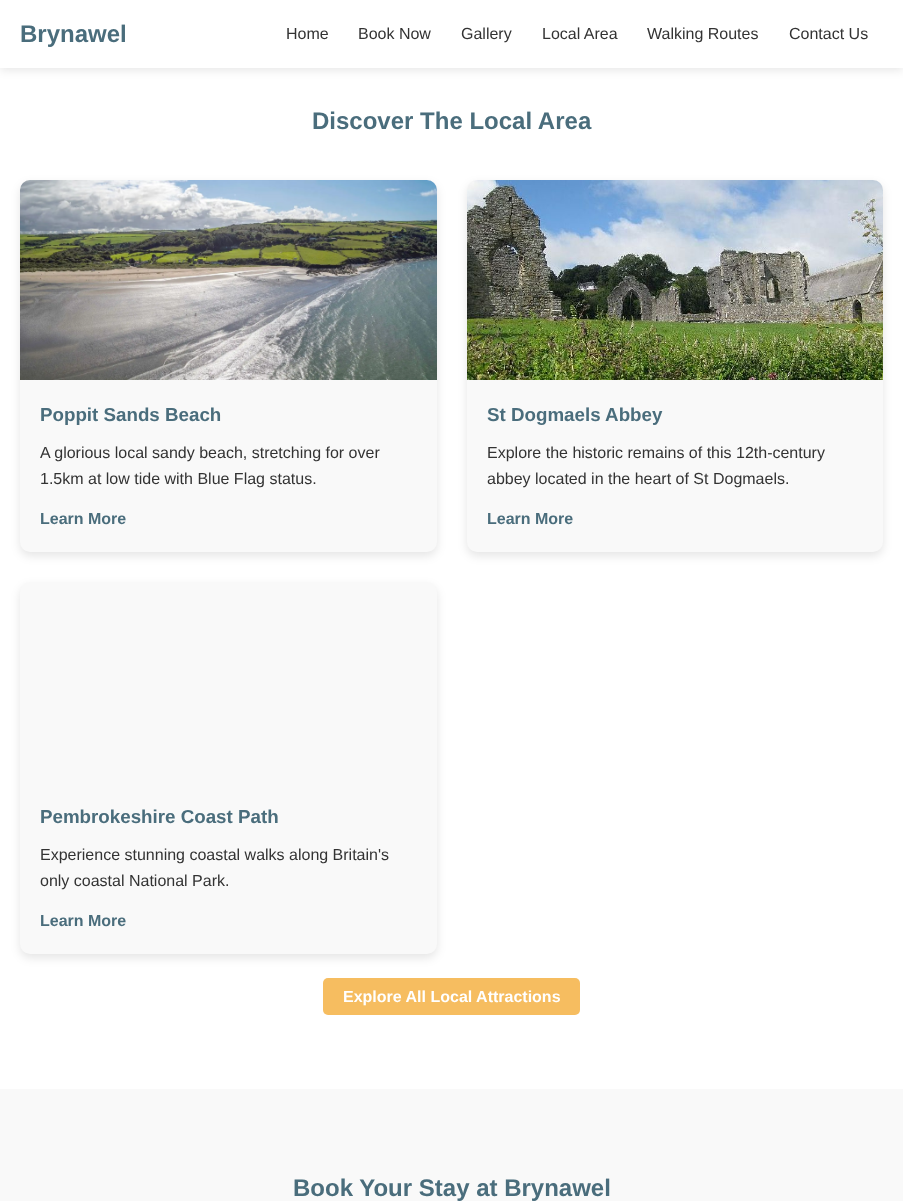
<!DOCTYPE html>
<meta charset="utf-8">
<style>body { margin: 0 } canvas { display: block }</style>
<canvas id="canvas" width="903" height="1201"></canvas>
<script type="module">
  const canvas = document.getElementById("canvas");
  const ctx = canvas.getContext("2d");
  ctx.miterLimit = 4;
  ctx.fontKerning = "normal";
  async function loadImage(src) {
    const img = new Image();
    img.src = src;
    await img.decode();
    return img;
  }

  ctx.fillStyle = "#f9f9f9";
  ctx.fillRect(0, 0, 903, 1201);
  ctx.fillStyle = "#ffffff";
  ctx.fillRect(0, 68, 903, 1021);
  ctx.fillStyle = "rgba(0, 0, 0, 0.1)";
  ctx.filter = "blur(5px)";
  ctx.beginPath();
  ctx.rect(0, 2, 903, 68);
  ctx.fill();
  ctx.filter = "none";
  ctx.fillStyle = "#ffffff";
  ctx.fillRect(0, 0, 903, 68);
  ctx.font = "bold 24px Liberation Sans";
  ctx.fillStyle = "#4a6d7c";
  ctx.fillText("Brynawel", 20, 42);
  ctx.font = "16px Liberation Sans";
  ctx.fillStyle = "#333333";
  ctx.fillText("Home", 286, 39);
  ctx.fillText("Book Now", 358, 39);
  ctx.fillText("Gallery", 461, 39);
  ctx.fillText("Local Area", 542, 39);
  ctx.fillText("Walking Routes", 647, 39);
  ctx.fillText("Contact Us", 789, 39);
  ctx.font = "bold 24px Liberation Sans";
  ctx.fillStyle = "#4a6d7c";
  ctx.fillText("Discover The Local Area", 312, 129);
  ctx.fillStyle = "rgba(0, 0, 0, 0.1)";
  ctx.filter = "blur(5px)";
  ctx.beginPath();
  ctx.roundRect(20, 184, 417, 372, 10);
  ctx.fill();
  ctx.filter = "none";
  ctx.fillStyle = "#f9f9f9";
  ctx.beginPath();
  ctx.roundRect(20, 180, 417, 372, 10);
  ctx.fill();
  ctx.drawImage(await loadImage("img1.png"), 20, 180, 417, 200);
  ctx.font = "bold 18.75px Liberation Sans";
  ctx.fillStyle = "#4a6d7c";
  ctx.fillText("Poppit Sands Beach", 40, 421);
  ctx.font = "16px Liberation Sans";
  ctx.fillStyle = "#333333";
  ctx.fillText("A glorious local sandy beach, stretching for over", 40, 458);
  ctx.fillText("1.5km at low tide with Blue Flag status.", 40, 484);
  ctx.font = "bold 16px Liberation Sans";
  ctx.fillStyle = "#4a6d7c";
  ctx.fillText("Learn More", 40, 524);
  ctx.fillStyle = "rgba(0, 0, 0, 0.1)";
  ctx.filter = "blur(5px)";
  ctx.beginPath();
  ctx.roundRect(467, 184, 416, 372, 10);
  ctx.fill();
  ctx.filter = "none";
  ctx.fillStyle = "#f9f9f9";
  ctx.beginPath();
  ctx.roundRect(467, 180, 416, 372, 10);
  ctx.fill();
  ctx.drawImage(await loadImage("img2.png"), 467, 180, 416, 200);
  ctx.font = "bold 18.75px Liberation Sans";
  ctx.fillStyle = "#4a6d7c";
  ctx.fillText("St Dogmaels Abbey", 487, 421);
  ctx.font = "16px Liberation Sans";
  ctx.fillStyle = "#333333";
  ctx.fillText("Explore the historic remains of this 12th-century", 487, 458);
  ctx.fillText("abbey located in the heart of St Dogmaels.", 487, 484);
  ctx.font = "bold 16px Liberation Sans";
  ctx.fillStyle = "#4a6d7c";
  ctx.fillText("Learn More", 487, 524);
  ctx.fillStyle = "rgba(0, 0, 0, 0.1)";
  ctx.filter = "blur(5px)";
  ctx.beginPath();
  ctx.roundRect(20, 586, 417, 372, 10);
  ctx.fill();
  ctx.filter = "none";
  ctx.fillStyle = "#f9f9f9";
  ctx.beginPath();
  ctx.roundRect(20, 582, 417, 372, 10);
  ctx.fill();
  ctx.font = "bold 18.75px Liberation Sans";
  ctx.fillStyle = "#4a6d7c";
  ctx.fillText("Pembrokeshire Coast Path", 40, 823);
  ctx.font = "16px Liberation Sans";
  ctx.fillStyle = "#333333";
  ctx.fillText("Experience stunning coastal walks along Britain's", 40, 860);
  ctx.fillText("only coastal National Park.", 40, 886);
  ctx.font = "bold 16px Liberation Sans";
  ctx.fillStyle = "#4a6d7c";
  ctx.fillText("Learn More", 40, 926);
  ctx.fillStyle = "#f6bd60";
  ctx.beginPath();
  ctx.roundRect(323, 978, 257, 37, 5);
  ctx.fill();
  ctx.fillStyle = "#ffffff";
  ctx.fillText("Explore All Local Attractions", 343, 1002);
  ctx.font = "bold 24px Liberation Sans";
  ctx.fillStyle = "#4a6d7c";
  ctx.fillText("Book Your Stay at Brynawel", 293, 1196);
</script>
